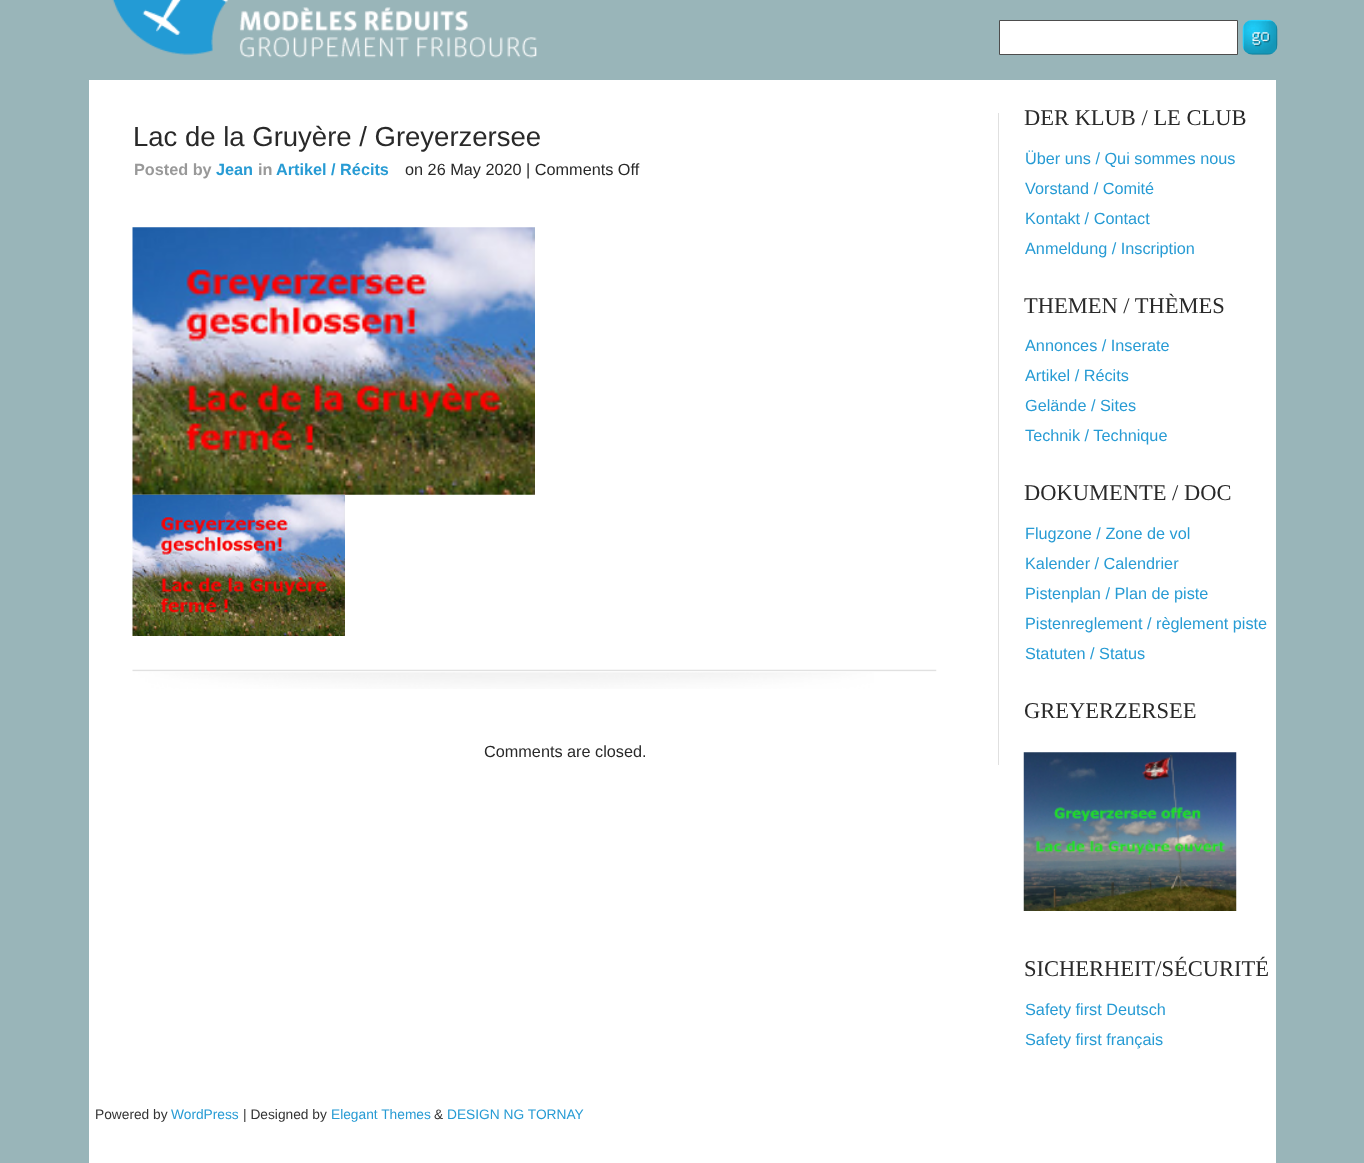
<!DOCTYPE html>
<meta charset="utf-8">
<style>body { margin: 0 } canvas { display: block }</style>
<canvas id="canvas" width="1364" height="1163"></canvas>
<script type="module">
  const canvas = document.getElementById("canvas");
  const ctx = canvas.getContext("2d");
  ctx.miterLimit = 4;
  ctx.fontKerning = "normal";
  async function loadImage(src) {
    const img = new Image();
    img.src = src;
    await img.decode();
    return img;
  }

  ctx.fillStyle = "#99b5b9";
  ctx.fillRect(0, 0, 1364, 1163);
  ctx.drawImage(await loadImage("img1.png"), 112, 0, 425, 58);
  ctx.fillStyle = "#ffffff";
  ctx.beginPath();
  ctx.rect(999.5, 20.5, 238, 34);
  ctx.fill();
  ctx.strokeStyle = "#4d4d4d";
  ctx.stroke();
  ctx.drawImage(await loadImage("img2.png"), 1242, 19, 36, 36);
  ctx.fillRect(89, 80, 1187, 1083);
  ctx.fillStyle = "#e0e0e0";
  ctx.fillRect(998, 113, 1, 652);
  ctx.drawImage(await loadImage("img3.png"), 132, 669, 805, 20);
  ctx.font = "27.5px Liberation Sans";
  ctx.fillStyle = "#292929";
  ctx.fillText("Lac de la Gruyère / Greyerzersee", 133, 146);
  ctx.font = "bold 16.25px Liberation Sans";
  ctx.fillStyle = "#999999";
  ctx.fillText("Posted by", 134, 175);
  ctx.fillStyle = "#279bd4";
  ctx.fillText("Jean", 216, 175);
  ctx.fillStyle = "#999999";
  ctx.fillText("in", 258, 175);
  ctx.fillStyle = "#279bd4";
  ctx.fillText("Artikel / Récits", 276, 175);
  ctx.font = "16.25px Liberation Sans";
  ctx.fillStyle = "#292929";
  ctx.fillText("on 26 May 2020 | Comments Off", 405, 175);
  ctx.drawImage(await loadImage("img4.png"), 132, 227, 403, 268);
  ctx.drawImage(await loadImage("img5.png"), 132, 494, 213, 142);
  ctx.fillText("Comments are closed.", 484, 757);
  ctx.font = "22.5px Liberation Serif";
  ctx.fillText("DER KLUB / LE CLUB", 1024, 125);
  ctx.font = "16.25px Liberation Sans";
  ctx.fillStyle = "#279bd4";
  ctx.fillText("Über uns / Qui sommes nous", 1025, 164);
  ctx.fillText("Vorstand / Comité", 1025, 194);
  ctx.fillText("Kontakt / Contact", 1025, 224);
  ctx.fillText("Anmeldung / Inscription", 1025, 254);
  ctx.font = "22.5px Liberation Serif";
  ctx.fillStyle = "#292929";
  ctx.fillText("THEMEN / THÈMES", 1024, 313);
  ctx.font = "16.25px Liberation Sans";
  ctx.fillStyle = "#279bd4";
  ctx.fillText("Annonces / Inserate", 1025, 351);
  ctx.fillText("Artikel / Récits", 1025, 381);
  ctx.fillText("Gelände / Sites", 1025, 411);
  ctx.fillText("Technik / Technique", 1025, 441);
  ctx.font = "22.5px Liberation Serif";
  ctx.fillStyle = "#292929";
  ctx.fillText("DOKUMENTE / DOC", 1024, 500);
  ctx.font = "16.25px Liberation Sans";
  ctx.fillStyle = "#279bd4";
  ctx.fillText("Flugzone / Zone de vol", 1025, 539);
  ctx.fillText("Kalender / Calendrier", 1025, 569);
  ctx.fillText("Pistenplan / Plan de piste", 1025, 599);
  ctx.fillText("Pistenreglement / règlement piste", 1025, 629);
  ctx.fillText("Statuten / Status", 1025, 659);
  ctx.font = "22.5px Liberation Serif";
  ctx.fillStyle = "#292929";
  ctx.fillText("GREYERZERSEE", 1024, 718);
  ctx.drawImage(await loadImage("img6.png"), 1023, 752, 214, 159);
  ctx.fillText("SICHERHEIT/SÉCURITÉ", 1024, 976);
  ctx.font = "16.25px Liberation Sans";
  ctx.fillStyle = "#279bd4";
  ctx.fillText("Safety first Deutsch", 1025, 1015);
  ctx.fillText("Safety first français", 1025, 1045);
  ctx.font = "13.75px Liberation Sans";
  ctx.fillStyle = "#333333";
  ctx.fillText("Powered by", 95, 1119);
  ctx.fillStyle = "#279bd4";
  ctx.fillText("WordPress", 171, 1119);
  ctx.fillStyle = "#333333";
  ctx.fillText("| Designed by", 243, 1119);
  ctx.fillStyle = "#279bd4";
  ctx.fillText("Elegant Themes", 331, 1119);
  ctx.fillStyle = "#333333";
  ctx.fillText("&", 434, 1119);
  ctx.fillStyle = "#279bd4";
  ctx.fillText("DESIGN NG TORNAY", 447, 1119);
</script>
